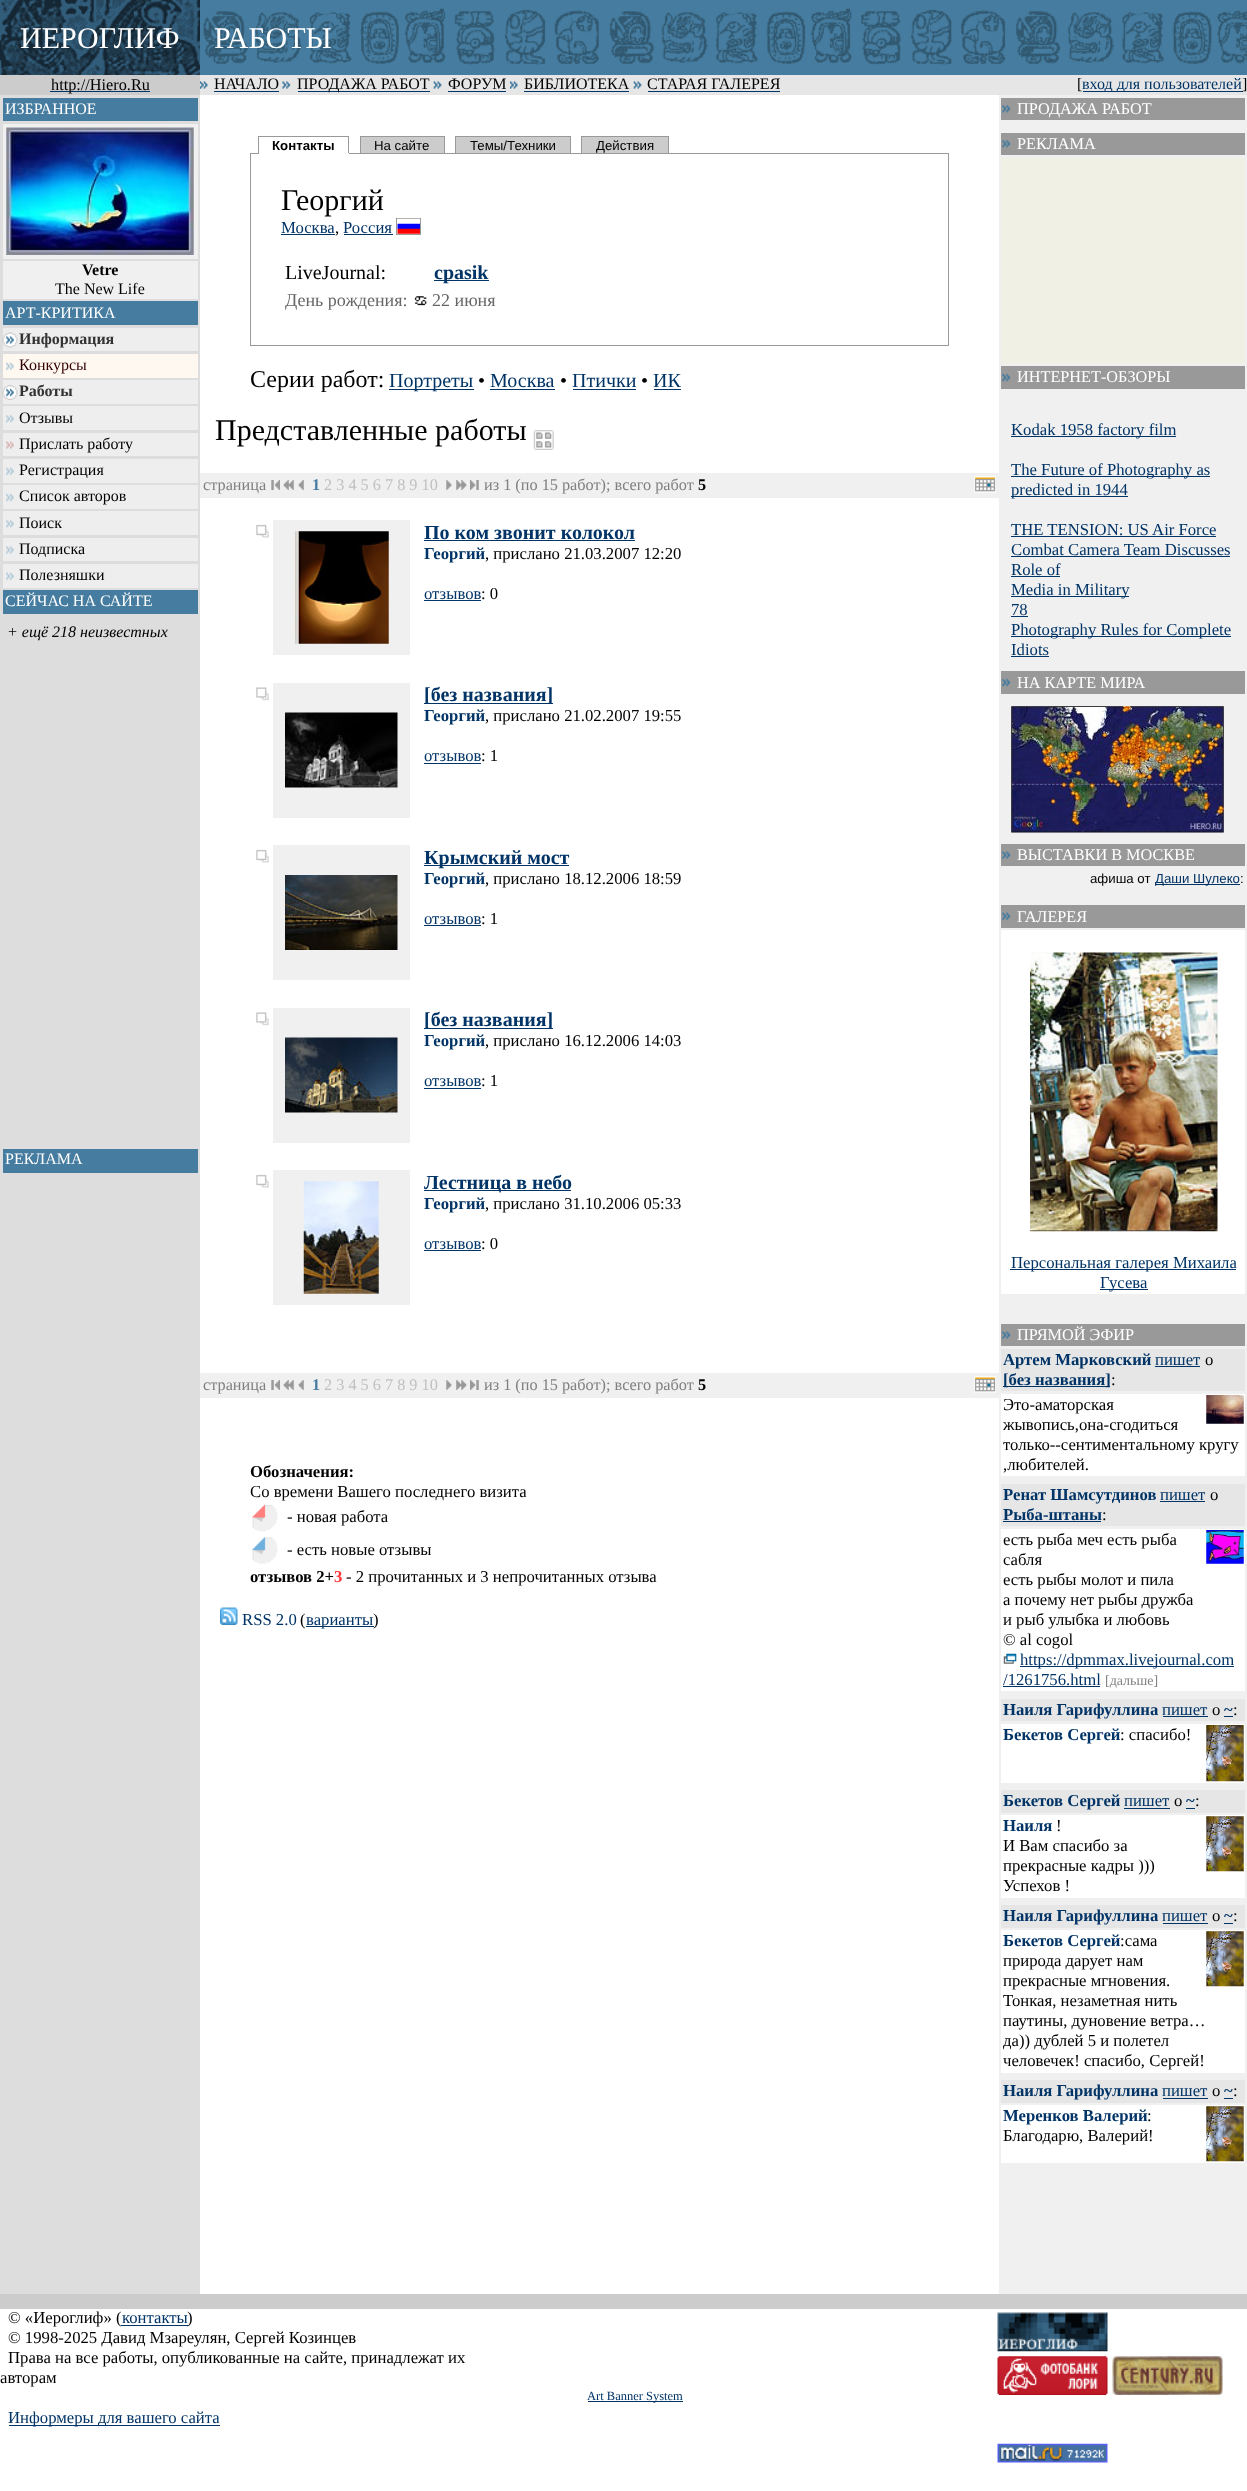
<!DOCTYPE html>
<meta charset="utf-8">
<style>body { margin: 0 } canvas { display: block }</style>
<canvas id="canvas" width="1247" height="2491"></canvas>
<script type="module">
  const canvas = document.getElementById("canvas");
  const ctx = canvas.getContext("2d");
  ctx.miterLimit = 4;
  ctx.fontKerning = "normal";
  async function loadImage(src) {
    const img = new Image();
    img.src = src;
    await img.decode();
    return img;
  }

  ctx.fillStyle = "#ffffff";
  ctx.fillRect(0, 0, 1247, 2491);
  ctx.drawImage(await loadImage("img1.png"), 0, 0, 200, 75);
  ctx.font = "30px Liberation Serif";
  ctx.fillText("ИЕРОГЛИФ", 20, 48);
  ctx.fillStyle = "#457c9f";
  ctx.fillRect(200, 0, 1047, 75);
  ctx.drawImage(await loadImage("img2.png"), 203, 8, 1044, 57);
  ctx.fillStyle = "#ffffff";
  ctx.fillText("РАБОТЫ", 214, 48);
  ctx.fillStyle = "#cccccc";
  ctx.fillRect(0, 75, 200, 20);
  ctx.fillStyle = "#003366";
  ctx.fillRect(50, 91, 100, 1);
  ctx.font = "16.25px Liberation Serif";
  ctx.fillStyle = "#000000";
  ctx.fillText("http://Hiero.Ru", 51, 90);
  ctx.fillStyle = "#e6e6e6";
  ctx.fillRect(200, 75, 1047, 20);
  ctx.drawImage(await loadImage("img3.png"), 200, 81, 8, 8);
  ctx.font = "16px Liberation Serif";
  ctx.fillStyle = "#000000";
  ctx.fillText("НАЧАЛО", 214, 89);
  ctx.fillStyle = "#003366";
  ctx.fillRect(214, 91, 65, 1);
  ctx.drawImage(await loadImage("img4.png"), 282, 81, 9, 8);
  ctx.fillRect(298, 91, 132, 1);
  ctx.fillStyle = "#000000";
  ctx.fillText("ПРОДАЖА РАБОТ", 297, 89);
  ctx.drawImage(await loadImage("img5.png"), 433, 81, 9, 8);
  ctx.fillText("ФОРУМ", 448, 89);
  ctx.fillStyle = "#003366";
  ctx.fillRect(448, 91, 58, 1);
  ctx.drawImage(await loadImage("img3.png"), 510, 81, 8, 8);
  ctx.fillStyle = "#000000";
  ctx.fillText("БИБЛИОТЕКА", 524, 89);
  ctx.fillStyle = "#003366";
  ctx.fillRect(524, 91, 105, 1);
  ctx.drawImage(await loadImage("img5.png"), 633, 81, 9, 8);
  ctx.fillStyle = "#000000";
  ctx.fillText("СТАРАЯ ГАЛЕРЕЯ", 647, 89);
  ctx.fillStyle = "#003366";
  ctx.fillRect(648, 91, 132, 1);
  ctx.fillStyle = "#000000";
  ctx.fillText("[", 1077, 89);
  ctx.fillStyle = "#003366";
  ctx.fillRect(1083, 91, 160, 1);
  ctx.fillText("вход для пользователей", 1082, 89);
  ctx.fillStyle = "#000000";
  ctx.fillText("]", 1242, 89);
  ctx.fillStyle = "#dddddd";
  ctx.fillRect(0, 95, 200, 2199);
  ctx.fillStyle = "#457c9f";
  ctx.fillRect(3, 98, 195, 23);
  ctx.fillStyle = "#ffffff";
  ctx.fillText("ИЗБРАННОЕ", 5, 114);
  ctx.fillStyle = "#f0f0f0";
  ctx.fillRect(3, 124, 195, 135);
  ctx.drawImage(await loadImage("img6.png"), 6, 127, 188, 128);
  ctx.fillRect(3, 261, 195, 38);
  ctx.font = "bold 16px Liberation Serif";
  ctx.fillStyle = "#000000";
  ctx.fillText("Vetre", 82, 275);
  ctx.font = "16px Liberation Serif";
  ctx.fillText("The New Life", 55, 294);
  ctx.fillStyle = "#457c9f";
  ctx.fillRect(3, 301, 195, 24);
  ctx.fillStyle = "#ffffff";
  ctx.fillText("АРТ-КРИТИКА", 5, 318);
  ctx.fillStyle = "#eeeeee";
  ctx.fillRect(3, 328, 195, 23);
  ctx.drawImage(await loadImage("img7.png"), 2, 332, 16, 16);
  ctx.font = "bold 16px Liberation Serif";
  ctx.fillStyle = "#333333";
  ctx.fillText("Информация", 19, 344);
  ctx.fillStyle = "#fff8f0";
  ctx.fillRect(3, 354, 195, 24);
  ctx.drawImage(await loadImage("img8.png"), 6, 362, 8, 9);
  ctx.font = "16px Liberation Serif";
  ctx.fillStyle = "#330000";
  ctx.fillText("Конкурсы", 19, 370);
  ctx.fillStyle = "#eeeeee";
  ctx.fillRect(3, 380, 195, 24);
  ctx.drawImage(await loadImage("img9.png"), 2, 385, 16, 15);
  ctx.font = "bold 16px Liberation Serif";
  ctx.fillStyle = "#333333";
  ctx.fillText("Работы", 19, 396);
  ctx.fillStyle = "#eeeeee";
  ctx.fillRect(3, 406, 195, 24);
  ctx.drawImage(await loadImage("img10.png"), 6, 415, 8, 8);
  ctx.font = "16px Liberation Serif";
  ctx.fillStyle = "#000000";
  ctx.fillText("Отзывы", 19, 423);
  ctx.fillStyle = "#eeeeee";
  ctx.fillRect(3, 433, 195, 23);
  ctx.drawImage(await loadImage("img11.png"), 6, 441, 8, 8);
  ctx.fillStyle = "#000000";
  ctx.fillText("Прислать работу", 19, 449);
  ctx.fillStyle = "#eeeeee";
  ctx.fillRect(3, 459, 195, 24);
  ctx.drawImage(await loadImage("img12.png"), 6, 467, 8, 9);
  ctx.fillStyle = "#000000";
  ctx.fillText("Регистрация", 19, 475);
  ctx.fillStyle = "#eeeeee";
  ctx.fillRect(3, 485, 195, 24);
  ctx.drawImage(await loadImage("img13.png"), 6, 493, 8, 9);
  ctx.fillStyle = "#000000";
  ctx.fillText("Список авторов", 19, 501);
  ctx.fillStyle = "#eeeeee";
  ctx.fillRect(3, 511, 195, 24);
  ctx.drawImage(await loadImage("img10.png"), 6, 520, 8, 8);
  ctx.fillStyle = "#000000";
  ctx.fillText("Поиск", 19, 528);
  ctx.fillStyle = "#eeeeee";
  ctx.fillRect(3, 538, 195, 23);
  ctx.drawImage(await loadImage("img14.png"), 6, 546, 8, 8);
  ctx.fillStyle = "#000000";
  ctx.fillText("Подписка", 19, 554);
  ctx.fillStyle = "#eeeeee";
  ctx.fillRect(3, 564, 195, 24);
  ctx.drawImage(await loadImage("img12.png"), 6, 572, 8, 9);
  ctx.fillStyle = "#000000";
  ctx.fillText("Полезняшки", 19, 580);
  ctx.fillStyle = "#457c9f";
  ctx.fillRect(3, 590, 195, 24);
  ctx.fillStyle = "#ffffff";
  ctx.fillText("СЕЙЧАС НА САЙТЕ", 5, 606);
  ctx.font = "italic 16px Liberation Serif";
  ctx.fillStyle = "#000000";
  ctx.fillText("+ ещё 218 неизвестных", 7, 637);
  ctx.fillStyle = "#457c9f";
  ctx.fillRect(3, 1149, 195, 24);
  ctx.font = "16px Liberation Serif";
  ctx.fillStyle = "#ffffff";
  ctx.fillText("РЕКЛАМА", 5, 1164);
  ctx.fillStyle = "#999999";
  ctx.fillRect(250, 153, 699, 1);
  ctx.font = "bold 13.25px Liberation Sans";
  ctx.fillStyle = "#000000";
  ctx.fillText("Контакты", 272, 150);
  ctx.fillStyle = "#999999";
  ctx.fillRect(258, 136, 91, 1);
  ctx.fillRect(348, 136, 1, 18);
  ctx.fillStyle = "#ffffff";
  ctx.fillRect(258, 153, 91, 1);
  ctx.fillStyle = "#999999";
  ctx.fillRect(258, 136, 1, 18);
  ctx.fillStyle = "#cccccc";
  ctx.fillRect(361, 137, 83, 16);
  ctx.font = "13.25px Liberation Sans";
  ctx.fillStyle = "#000000";
  ctx.fillText("На сайте", 374, 150);
  ctx.fillStyle = "#999999";
  ctx.fillRect(360, 136, 85, 1);
  ctx.fillRect(444, 136, 1, 17);
  ctx.fillRect(360, 136, 1, 17);
  ctx.fillStyle = "#cccccc";
  ctx.fillRect(456, 137, 114, 16);
  ctx.fillStyle = "#000000";
  ctx.fillText("Темы/Техники", 470, 150);
  ctx.fillStyle = "#999999";
  ctx.fillRect(455, 136, 116, 1);
  ctx.fillRect(570, 136, 1, 17);
  ctx.fillRect(455, 136, 1, 17);
  ctx.fillStyle = "#cccccc";
  ctx.fillRect(582, 137, 86, 16);
  ctx.fillStyle = "#000000";
  ctx.fillText("Действия", 596, 150);
  ctx.fillStyle = "#999999";
  ctx.fillRect(581, 136, 88, 1);
  ctx.fillRect(668, 136, 1, 17);
  ctx.fillRect(581, 136, 1, 17);
  ctx.fillRect(948, 154, 1, 192);
  ctx.fillRect(250, 345, 699, 1);
  ctx.fillRect(250, 154, 1, 192);
  ctx.font = "30px Liberation Serif";
  ctx.fillStyle = "#000000";
  ctx.fillText("Георгий", 281, 210);
  ctx.font = "16.7px Liberation Serif";
  ctx.fillStyle = "#003366";
  ctx.fillText("Москва", 281, 233);
  ctx.fillStyle = "#000000";
  ctx.fillText(",", 335, 233);
  ctx.fillStyle = "#003366";
  ctx.fillRect(281, 234, 54, 1);
  ctx.fillRect(344, 234, 49, 1);
  ctx.fillText("Россия", 343, 233);
  ctx.strokeStyle = "#999999";
  ctx.strokeRect(396.5, 218.5, 24, 16);
  ctx.drawImage(await loadImage("img15.png"), 397, 218, 23, 16);
  ctx.font = "20px Liberation Serif";
  ctx.fillStyle = "#000000";
  ctx.fillText("LiveJournal:", 285, 279);
  ctx.fillStyle = "#003366";
  ctx.fillRect(434, 280, 55, 1);
  ctx.font = "bold 20px Liberation Serif";
  ctx.fillText("cpasik", 434, 279);
  ctx.font = "18px Liberation Serif";
  ctx.fillStyle = "#666666";
  ctx.fillText("День рождения:", 285, 306);
  ctx.drawImage(await loadImage("img16.png"), 414, 296, 13, 10);
  ctx.fillText("22 июня", 432, 306);
  ctx.font = "24px Liberation Serif";
  ctx.fillStyle = "#000000";
  ctx.fillText("Серии работ:", 250, 387);
  ctx.fillStyle = "#003366";
  ctx.fillRect(389, 389, 85, 1);
  ctx.font = "20px Liberation Serif";
  ctx.fillText("Портреты", 389, 387);
  ctx.fillStyle = "#000000";
  ctx.fillText("•", 478, 387);
  ctx.fillStyle = "#003366";
  ctx.fillText("Москва", 490, 387);
  ctx.fillRect(490, 389, 65, 1);
  ctx.fillStyle = "#000000";
  ctx.fillText("•", 560, 387);
  ctx.fillStyle = "#003366";
  ctx.fillText("Птички", 572, 387);
  ctx.fillRect(573, 389, 63, 1);
  ctx.fillStyle = "#000000";
  ctx.fillText("•", 641, 387);
  ctx.fillStyle = "#003366";
  ctx.fillText("ИК", 653, 387);
  ctx.fillRect(654, 389, 27, 1);
  ctx.font = "30px Liberation Serif";
  ctx.fillStyle = "#000000";
  ctx.fillText("Представленные работы", 215, 440);
  ctx.drawImage(await loadImage("img17.png"), 533, 430, 21, 20);
  ctx.fillStyle = "#f0f0f0";
  ctx.fillRect(200, 473, 799, 25);
  ctx.font = "16.25px Liberation Serif";
  ctx.fillStyle = "#808080";
  ctx.fillText("страница", 203, 490);
  ctx.drawImage(await loadImage("img18.png"), 271, 480, 9, 10);
  ctx.drawImage(await loadImage("img19.png"), 283, 480, 11, 10);
  ctx.drawImage(await loadImage("img20.png"), 298, 480, 6, 10);
  ctx.font = "bold 16.25px Liberation Serif";
  ctx.fillStyle = "#457c9f";
  ctx.fillText("1", 312, 490);
  ctx.font = "16.25px Liberation Serif";
  ctx.fillStyle = "#c0c0c0";
  ctx.fillText("2 3 4 5 6 7 8 9 10", 324, 490);
  ctx.drawImage(await loadImage("img21.png"), 446, 480, 6, 10);
  ctx.drawImage(await loadImage("img22.png"), 456, 480, 11, 10);
  ctx.drawImage(await loadImage("img23.png"), 470, 480, 9, 10);
  ctx.fillStyle = "#808080";
  ctx.fillText("из 1 (по 15 работ); всего работ", 484, 490);
  ctx.font = "bold 16.25px Liberation Serif";
  ctx.fillStyle = "#000000";
  ctx.fillText("5", 698, 490);
  ctx.drawImage(await loadImage("img24.png"), 974, 476, 22, 17);
  ctx.drawImage(await loadImage("img25.png"), 256, 524, 13, 14);
  ctx.fillStyle = "#f0f0f0";
  ctx.fillRect(273, 520, 137, 135);
  ctx.drawImage(await loadImage("img26.png"), 295, 531, 94, 113);
  ctx.font = "bold 20px Liberation Serif";
  ctx.fillStyle = "#003366";
  ctx.fillText("По ком звонит колокол", 424, 539);
  ctx.fillRect(424, 540, 211, 1);
  ctx.font = "bold 16.7px Liberation Serif";
  ctx.fillText("Георгий", 424, 559);
  ctx.font = "16.7px Liberation Serif";
  ctx.fillStyle = "#000000";
  ctx.fillText(", прислано 21.03.2007 12:20", 485, 559);
  ctx.fillStyle = "#003366";
  ctx.fillText("отзывов", 424, 599);
  ctx.fillRect(424, 600, 57, 1);
  ctx.fillStyle = "#000000";
  ctx.fillText(": 0", 481, 599);
  ctx.drawImage(await loadImage("img27.png"), 256, 687, 13, 14);
  ctx.fillStyle = "#f0f0f0";
  ctx.fillRect(273, 683, 137, 135);
  ctx.drawImage(await loadImage("img28.png"), 285, 712, 113, 76);
  ctx.fillStyle = "#003366";
  ctx.fillRect(424, 703, 129, 1);
  ctx.font = "bold 20px Liberation Serif";
  ctx.fillText("[без названия]", 424, 701);
  ctx.font = "bold 16.7px Liberation Serif";
  ctx.fillText("Георгий", 424, 721);
  ctx.font = "16.7px Liberation Serif";
  ctx.fillStyle = "#000000";
  ctx.fillText(", прислано 21.02.2007 19:55", 485, 721);
  ctx.fillStyle = "#003366";
  ctx.fillText("отзывов", 424, 761);
  ctx.fillRect(424, 763, 57, 1);
  ctx.fillStyle = "#000000";
  ctx.fillText(": 1", 481, 761);
  ctx.drawImage(await loadImage("img25.png"), 256, 849, 13, 14);
  ctx.fillStyle = "#f0f0f0";
  ctx.fillRect(273, 845, 137, 135);
  ctx.drawImage(await loadImage("img29.png"), 285, 875, 113, 75);
  ctx.fillStyle = "#003366";
  ctx.fillRect(424, 865, 145, 1);
  ctx.font = "bold 20px Liberation Serif";
  ctx.fillText("Крымский мост", 424, 864);
  ctx.font = "bold 16.7px Liberation Serif";
  ctx.fillText("Георгий", 424, 884);
  ctx.font = "16.7px Liberation Serif";
  ctx.fillStyle = "#000000";
  ctx.fillText(", прислано 18.12.2006 18:59", 485, 884);
  ctx.fillStyle = "#003366";
  ctx.fillText("отзывов", 424, 924);
  ctx.fillRect(424, 925, 57, 1);
  ctx.fillStyle = "#000000";
  ctx.fillText(": 1", 481, 924);
  ctx.drawImage(await loadImage("img27.png"), 256, 1012, 13, 14);
  ctx.fillStyle = "#f0f0f0";
  ctx.fillRect(273, 1008, 137, 135);
  ctx.drawImage(await loadImage("img30.png"), 285, 1037, 113, 76);
  ctx.fillStyle = "#003366";
  ctx.fillRect(424, 1028, 129, 1);
  ctx.font = "bold 20px Liberation Serif";
  ctx.fillText("[без названия]", 424, 1026);
  ctx.font = "bold 16.7px Liberation Serif";
  ctx.fillText("Георгий", 424, 1046);
  ctx.font = "16.7px Liberation Serif";
  ctx.fillStyle = "#000000";
  ctx.fillText(", прислано 16.12.2006 14:03", 485, 1046);
  ctx.fillStyle = "#003366";
  ctx.fillText("отзывов", 424, 1086);
  ctx.fillRect(424, 1088, 57, 1);
  ctx.fillStyle = "#000000";
  ctx.fillText(": 1", 481, 1086);
  ctx.drawImage(await loadImage("img31.png"), 256, 1174, 13, 14);
  ctx.fillStyle = "#f0f0f0";
  ctx.fillRect(273, 1170, 137, 135);
  ctx.drawImage(await loadImage("img32.png"), 303, 1181, 76, 113);
  ctx.fillStyle = "#003366";
  ctx.fillRect(424, 1190, 147, 1);
  ctx.font = "bold 20px Liberation Serif";
  ctx.fillText("Лестница в небо", 424, 1189);
  ctx.font = "bold 16.7px Liberation Serif";
  ctx.fillText("Георгий", 424, 1209);
  ctx.font = "16.7px Liberation Serif";
  ctx.fillStyle = "#000000";
  ctx.fillText(", прислано 31.10.2006 05:33", 485, 1209);
  ctx.fillStyle = "#003366";
  ctx.fillText("отзывов", 424, 1249);
  ctx.fillRect(424, 1250, 57, 1);
  ctx.fillStyle = "#000000";
  ctx.fillText(": 0", 481, 1249);
  ctx.fillStyle = "#f0f0f0";
  ctx.fillRect(200, 1373, 799, 25);
  ctx.font = "16.25px Liberation Serif";
  ctx.fillStyle = "#808080";
  ctx.fillText("страница", 203, 1390);
  ctx.drawImage(await loadImage("img18.png"), 271, 1380, 9, 10);
  ctx.drawImage(await loadImage("img19.png"), 283, 1380, 11, 10);
  ctx.drawImage(await loadImage("img20.png"), 298, 1380, 6, 10);
  ctx.font = "bold 16.25px Liberation Serif";
  ctx.fillStyle = "#457c9f";
  ctx.fillText("1", 312, 1390);
  ctx.font = "16.25px Liberation Serif";
  ctx.fillStyle = "#c0c0c0";
  ctx.fillText("2 3 4 5 6 7 8 9 10", 324, 1390);
  ctx.drawImage(await loadImage("img21.png"), 446, 1380, 6, 10);
  ctx.drawImage(await loadImage("img22.png"), 456, 1380, 11, 10);
  ctx.drawImage(await loadImage("img23.png"), 470, 1380, 9, 10);
  ctx.fillStyle = "#808080";
  ctx.fillText("из 1 (по 15 работ); всего работ", 484, 1390);
  ctx.font = "bold 16.25px Liberation Serif";
  ctx.fillStyle = "#000000";
  ctx.fillText("5", 698, 1390);
  ctx.drawImage(await loadImage("img24.png"), 974, 1376, 22, 17);
  ctx.font = "bold 16.7px Liberation Serif";
  ctx.fillText("Обозначения:", 250, 1477);
  ctx.font = "16.7px Liberation Serif";
  ctx.fillText("Со времени Вашего последнего визита", 250, 1497);
  ctx.drawImage(await loadImage("img33.png"), 252, 1504, 26, 28);
  ctx.fillText("- новая работа", 287, 1522);
  ctx.drawImage(await loadImage("img34.png"), 252, 1537, 26, 27);
  ctx.fillText("- есть новые отзывы", 287, 1555);
  ctx.font = "bold 16.7px Liberation Serif";
  ctx.fillText("отзывов 2+", 250, 1582);
  ctx.fillStyle = "#ff3333";
  ctx.fillText("3", 334, 1582);
  ctx.font = "16.7px Liberation Serif";
  ctx.fillStyle = "#000000";
  ctx.fillText("- 2 прочитанных и 3 непрочитанных отзыва", 346, 1582);
  ctx.drawImage(await loadImage("img35.png"), 220, 1607, 18, 18);
  ctx.fillStyle = "#003366";
  ctx.fillText("RSS 2.0", 242, 1625);
  ctx.fillStyle = "#000000";
  ctx.fillText("(", 300, 1625);
  ctx.fillStyle = "#003366";
  ctx.fillRect(306, 1626, 68, 1);
  ctx.fillText("варианты", 306, 1625);
  ctx.fillStyle = "#000000";
  ctx.fillText(")", 373, 1625);
  ctx.fillStyle = "#f0f0f0";
  ctx.fillRect(999, 95, 248, 2199);
  ctx.fillStyle = "#999999";
  ctx.fillRect(1001, 98, 244, 22);
  ctx.drawImage(await loadImage("img36.png"), 1002, 105, 9, 8);
  ctx.font = "16.25px Liberation Serif";
  ctx.fillStyle = "#ffffff";
  ctx.fillText("ПРОДАЖА РАБОТ", 1017, 114);
  ctx.fillStyle = "#999999";
  ctx.fillRect(1001, 133, 244, 22);
  ctx.drawImage(await loadImage("img36.png"), 1002, 140, 9, 8);
  ctx.fillStyle = "#ffffff";
  ctx.fillText("РЕКЛАМА", 1017, 149);
  ctx.fillStyle = "#f0f0e5";
  ctx.fillRect(1001, 158, 244, 206);
  ctx.fillStyle = "#999999";
  ctx.fillRect(1001, 366, 244, 23);
  ctx.drawImage(await loadImage("img37.png"), 1002, 373, 9, 9);
  ctx.fillStyle = "#ffffff";
  ctx.fillText("ИНТЕРНЕТ-ОБЗОРЫ", 1017, 382);
  ctx.fillStyle = "#003366";
  ctx.fillRect(1011, 436, 165, 1);
  ctx.font = "16.7px Liberation Serif";
  ctx.fillText("Kodak 1958 factory film", 1011, 435);
  ctx.fillRect(1011, 476, 199, 1);
  ctx.fillText("The Future of Photography as", 1011, 475);
  ctx.fillRect(1011, 496, 117, 1);
  ctx.fillText("predicted in 1944", 1011, 495);
  ctx.fillText("THE TENSION: US Air Force", 1011, 535);
  ctx.fillRect(1011, 536, 205, 1);
  ctx.fillText("Combat Camera Team Discusses", 1011, 555);
  ctx.fillRect(1011, 556, 219, 1);
  ctx.fillText("Role of", 1011, 575);
  ctx.fillRect(1011, 576, 49, 1);
  ctx.fillRect(1011, 596, 118, 1);
  ctx.fillText("Media in Military", 1011, 595);
  ctx.fillText("78", 1011, 615);
  ctx.fillRect(1011, 616, 17, 1);
  ctx.fillRect(1011, 636, 220, 1);
  ctx.fillText("Photography Rules for Complete", 1011, 635);
  ctx.fillText("Idiots", 1011, 655);
  ctx.fillRect(1011, 656, 38, 1);
  ctx.fillStyle = "#999999";
  ctx.fillRect(1001, 671, 244, 23);
  ctx.drawImage(await loadImage("img37.png"), 1002, 678, 9, 9);
  ctx.font = "16.25px Liberation Serif";
  ctx.fillStyle = "#ffffff";
  ctx.fillText("НА КАРТЕ МИРА", 1017, 688);
  ctx.drawImage(await loadImage("img38.png"), 1011, 706, 213, 127);
  ctx.fillStyle = "#999999";
  ctx.fillRect(1001, 844, 244, 22);
  ctx.drawImage(await loadImage("img39.png"), 1002, 851, 9, 8);
  ctx.fillStyle = "#ffffff";
  ctx.fillText("ВЫСТАВКИ В МОСКВЕ", 1017, 860);
  ctx.font = "13.25px Liberation Sans";
  ctx.fillStyle = "#000000";
  ctx.fillText("афиша от", 1090, 883);
  ctx.fillStyle = "#003366";
  ctx.fillRect(1155, 884, 85, 1);
  ctx.fillText("Даши Шулеко", 1155, 883);
  ctx.fillStyle = "#000000";
  ctx.fillText(":", 1240, 883);
  ctx.fillStyle = "#999999";
  ctx.fillRect(1001, 905, 244, 23);
  ctx.drawImage(await loadImage("img40.png"), 1002, 912, 9, 9);
  ctx.font = "16.25px Liberation Serif";
  ctx.fillStyle = "#ffffff";
  ctx.fillText("ГАЛЕРЕЯ", 1017, 922);
  ctx.fillRect(1001, 930, 244, 364);
  ctx.drawImage(await loadImage("img41.png"), 1030, 952, 188, 280);
  ctx.fillStyle = "#003366";
  ctx.fillRect(1010, 1269, 226, 1);
  ctx.font = "16.7px Liberation Serif";
  ctx.fillText("Персональная галерея Михаила", 1011, 1268);
  ctx.fillRect(1100, 1289, 48, 1);
  ctx.fillText("Гусева", 1100, 1288);
  ctx.fillStyle = "#999999";
  ctx.fillRect(1001, 1324, 244, 22);
  ctx.drawImage(await loadImage("img39.png"), 1002, 1331, 9, 8);
  ctx.font = "16.25px Liberation Serif";
  ctx.fillStyle = "#ffffff";
  ctx.fillText("ПРЯМОЙ ЭФИР", 1017, 1340);
  ctx.fillStyle = "#e6e6e6";
  ctx.fillRect(1001, 1349, 244, 42);
  ctx.font = "bold 16.7px Liberation Serif";
  ctx.fillStyle = "#003366";
  ctx.fillText("Артем Марковский", 1003, 1365);
  ctx.font = "16.7px Liberation Serif";
  ctx.fillText("пишет", 1155, 1365);
  ctx.fillRect(1155, 1366, 45, 1);
  ctx.fillStyle = "#000000";
  ctx.fillText("о", 1205, 1365);
  ctx.fillStyle = "#003366";
  ctx.fillRect(1003, 1386, 107, 1);
  ctx.font = "bold 16.7px Liberation Serif";
  ctx.fillText("[без названия]", 1003, 1385);
  ctx.font = "16.7px Liberation Serif";
  ctx.fillStyle = "#000000";
  ctx.fillText(":", 1111, 1385);
  ctx.fillStyle = "#ffffff";
  ctx.fillRect(1001, 1394, 244, 82);
  ctx.fillStyle = "#000000";
  ctx.fillText("Это-аматорская", 1003, 1410);
  ctx.drawImage(await loadImage("img42.png"), 1206, 1395, 38, 29);
  ctx.fillText("жывопись,она-сгодиться", 1003, 1430);
  ctx.fillText("только--сентиментальному кругу", 1003, 1450);
  ctx.fillText(",любителей.", 1003, 1470);
  ctx.fillStyle = "#e6e6e6";
  ctx.fillRect(1001, 1484, 244, 42);
  ctx.font = "bold 16.7px Liberation Serif";
  ctx.fillStyle = "#003366";
  ctx.fillText("Ренат Шамсутдинов", 1003, 1500);
  ctx.font = "16.7px Liberation Serif";
  ctx.fillText("пишет", 1160, 1500);
  ctx.fillRect(1160, 1501, 45, 1);
  ctx.fillStyle = "#000000";
  ctx.fillText("о", 1210, 1500);
  ctx.font = "bold 16.7px Liberation Serif";
  ctx.fillStyle = "#003366";
  ctx.fillText("Рыба-штаны", 1003, 1520);
  ctx.font = "16.7px Liberation Serif";
  ctx.fillStyle = "#000000";
  ctx.fillText(":", 1102, 1520);
  ctx.fillStyle = "#003366";
  ctx.fillRect(1003, 1521, 98, 1);
  ctx.fillStyle = "#ffffff";
  ctx.fillRect(1001, 1529, 244, 162);
  ctx.fillStyle = "#000000";
  ctx.fillText("есть рыба меч есть рыба", 1003, 1545);
  ctx.drawImage(await loadImage("img43.png"), 1206, 1530, 38, 34);
  ctx.fillText("сабля", 1003, 1565);
  ctx.fillText("есть рыбы молот и пила", 1003, 1585);
  ctx.fillText("а почему нет рыбы дружба", 1003, 1605);
  ctx.fillText("и рыб улыбка и любовь", 1003, 1625);
  ctx.fillText("© al cogol", 1003, 1645);
  ctx.drawImage(await loadImage("img44.png"), 1003, 1653, 14, 11);
  ctx.fillStyle = "#003366";
  ctx.fillRect(1020, 1666, 214, 1);
  ctx.fillText("https://dpmmax.livejournal.com", 1020, 1665);
  ctx.fillText("/1261756.html", 1003, 1685);
  ctx.fillRect(1003, 1686, 97, 1);
  ctx.font = "14px Liberation Serif";
  ctx.fillStyle = "#808080";
  ctx.fillText("[дальше]", 1105, 1685);
  ctx.fillStyle = "#e6e6e6";
  ctx.fillRect(1001, 1699, 244, 22);
  ctx.font = "bold 16.7px Liberation Serif";
  ctx.fillStyle = "#003366";
  ctx.fillText("Наиля Гарифуллина", 1003, 1715);
  ctx.font = "16.7px Liberation Serif";
  ctx.fillText("пишет", 1162, 1715);
  ctx.fillRect(1163, 1716, 45, 1);
  ctx.fillStyle = "#000000";
  ctx.fillText("о", 1212, 1715);
  ctx.font = "bold 16.7px Liberation Serif";
  ctx.fillStyle = "#003366";
  ctx.fillText("~", 1224, 1715);
  ctx.font = "16.7px Liberation Serif";
  ctx.fillStyle = "#000000";
  ctx.fillText(":", 1233, 1715);
  ctx.fillStyle = "#003366";
  ctx.fillRect(1224, 1716, 9, 1);
  ctx.fillStyle = "#ffffff";
  ctx.fillRect(1001, 1724, 244, 59);
  ctx.font = "bold 16.7px Liberation Serif";
  ctx.fillStyle = "#003366";
  ctx.fillText("Бекетов Сергей", 1003, 1740);
  ctx.font = "16.7px Liberation Serif";
  ctx.fillStyle = "#000000";
  ctx.fillText(": спасибо!", 1120, 1740);
  ctx.drawImage(await loadImage("img45.png"), 1206, 1725, 38, 57);
  ctx.fillStyle = "#e6e6e6";
  ctx.fillRect(1001, 1790, 244, 23);
  ctx.font = "bold 16.7px Liberation Serif";
  ctx.fillStyle = "#003366";
  ctx.fillText("Бекетов Сергей", 1003, 1806);
  ctx.font = "16.7px Liberation Serif";
  ctx.fillText("пишет", 1124, 1806);
  ctx.fillRect(1124, 1808, 46, 1);
  ctx.fillStyle = "#000000";
  ctx.fillText("о", 1174, 1806);
  ctx.font = "bold 16.7px Liberation Serif";
  ctx.fillStyle = "#003366";
  ctx.fillText("~", 1186, 1806);
  ctx.font = "16.7px Liberation Serif";
  ctx.fillStyle = "#000000";
  ctx.fillText(":", 1195, 1806);
  ctx.fillStyle = "#003366";
  ctx.fillRect(1186, 1808, 9, 1);
  ctx.fillStyle = "#ffffff";
  ctx.fillRect(1001, 1815, 244, 83);
  ctx.font = "bold 16.7px Liberation Serif";
  ctx.fillStyle = "#003366";
  ctx.fillText("Наиля", 1003, 1831);
  ctx.font = "16.7px Liberation Serif";
  ctx.fillStyle = "#000000";
  ctx.fillText("!", 1056, 1831);
  ctx.drawImage(await loadImage("img46.png"), 1206, 1816, 38, 56);
  ctx.fillText("И Вам спасибо за", 1003, 1851);
  ctx.fillText("прекрасные кадры )))", 1003, 1871);
  ctx.fillText("Успехов !", 1003, 1891);
  ctx.fillStyle = "#e6e6e6";
  ctx.fillRect(1001, 1905, 244, 23);
  ctx.font = "bold 16.7px Liberation Serif";
  ctx.fillStyle = "#003366";
  ctx.fillText("Наиля Гарифуллина", 1003, 1921);
  ctx.font = "16.7px Liberation Serif";
  ctx.fillText("пишет", 1162, 1921);
  ctx.fillRect(1163, 1923, 45, 1);
  ctx.fillStyle = "#000000";
  ctx.fillText("о", 1212, 1921);
  ctx.font = "bold 16.7px Liberation Serif";
  ctx.fillStyle = "#003366";
  ctx.fillText("~", 1224, 1921);
  ctx.font = "16.7px Liberation Serif";
  ctx.fillStyle = "#000000";
  ctx.fillText(":", 1233, 1921);
  ctx.fillStyle = "#003366";
  ctx.fillRect(1224, 1923, 9, 1);
  ctx.fillStyle = "#ffffff";
  ctx.fillRect(1001, 1930, 244, 143);
  ctx.font = "bold 16.7px Liberation Serif";
  ctx.fillStyle = "#003366";
  ctx.fillText("Бекетов Сергей", 1003, 1946);
  ctx.font = "16.7px Liberation Serif";
  ctx.fillStyle = "#000000";
  ctx.fillText(":сама", 1120, 1946);
  ctx.drawImage(await loadImage("img46.png"), 1206, 1931, 38, 56);
  ctx.fillText("природа дарует нам", 1003, 1966);
  ctx.fillText("прекрасные мгновения.", 1003, 1986);
  ctx.fillText("Тонкая, незаметная нить", 1003, 2006);
  ctx.fillText("паутины, дуновение ветра…", 1003, 2026);
  ctx.fillText("да)) дублей 5 и полетел", 1003, 2046);
  ctx.fillText("человечек! спасибо, Сергей!", 1003, 2066);
  ctx.fillStyle = "#e6e6e6";
  ctx.fillRect(1001, 2080, 244, 23);
  ctx.font = "bold 16.7px Liberation Serif";
  ctx.fillStyle = "#003366";
  ctx.fillText("Наиля Гарифуллина", 1003, 2096);
  ctx.font = "16.7px Liberation Serif";
  ctx.fillText("пишет", 1162, 2096);
  ctx.fillRect(1163, 2098, 45, 1);
  ctx.fillStyle = "#000000";
  ctx.fillText("о", 1212, 2096);
  ctx.font = "bold 16.7px Liberation Serif";
  ctx.fillStyle = "#003366";
  ctx.fillText("~", 1224, 2096);
  ctx.font = "16.7px Liberation Serif";
  ctx.fillStyle = "#000000";
  ctx.fillText(":", 1233, 2096);
  ctx.fillStyle = "#003366";
  ctx.fillRect(1224, 2098, 9, 1);
  ctx.fillStyle = "#ffffff";
  ctx.fillRect(1001, 2105, 244, 58);
  ctx.font = "bold 16.7px Liberation Serif";
  ctx.fillStyle = "#003366";
  ctx.fillText("Меренков Валерий", 1003, 2121);
  ctx.font = "16.7px Liberation Serif";
  ctx.fillStyle = "#000000";
  ctx.fillText(":", 1147, 2121);
  ctx.drawImage(await loadImage("img46.png"), 1206, 2106, 38, 56);
  ctx.fillText("Благодарю, Валерий!", 1003, 2141);
  ctx.fillStyle = "#cccccc";
  ctx.fillRect(0, 2294, 1247, 15);
  ctx.fillStyle = "#000000";
  ctx.fillText("© «Иероглиф» (", 8, 2323);
  ctx.fillStyle = "#003366";
  ctx.fillText("контакты", 122, 2323);
  ctx.fillRect(121, 2325, 67, 1);
  ctx.fillStyle = "#000000";
  ctx.fillText(")", 187, 2323);
  ctx.fillText("© 1998-2025 Давид Мзареулян, Сергей Козинцев", 8, 2343);
  ctx.fillText("Права на все работы, опубликованные на сайте, принадлежат их", 8, 2363);
  ctx.fillText("авторам", 0, 2383);
  ctx.fillStyle = "#003366";
  ctx.fillRect(9, 2425, 211, 1);
  ctx.fillText("Информеры для вашего сайта", 8, 2423);
  ctx.fillRect(588, 2401, 95, 1);
  ctx.font = "12.5px Liberation Serif";
  ctx.fillText("Art Banner System", 587, 2400);
  ctx.drawImage(await loadImage("img47.png"), 997, 2312, 111, 40);
  ctx.drawImage(await loadImage("img48.png"), 997, 2356, 111, 39);
  ctx.drawImage(await loadImage("img49.png"), 1112, 2356, 111, 39);
  ctx.drawImage(await loadImage("img50.png"), 997, 2443, 111, 20);
</script>
